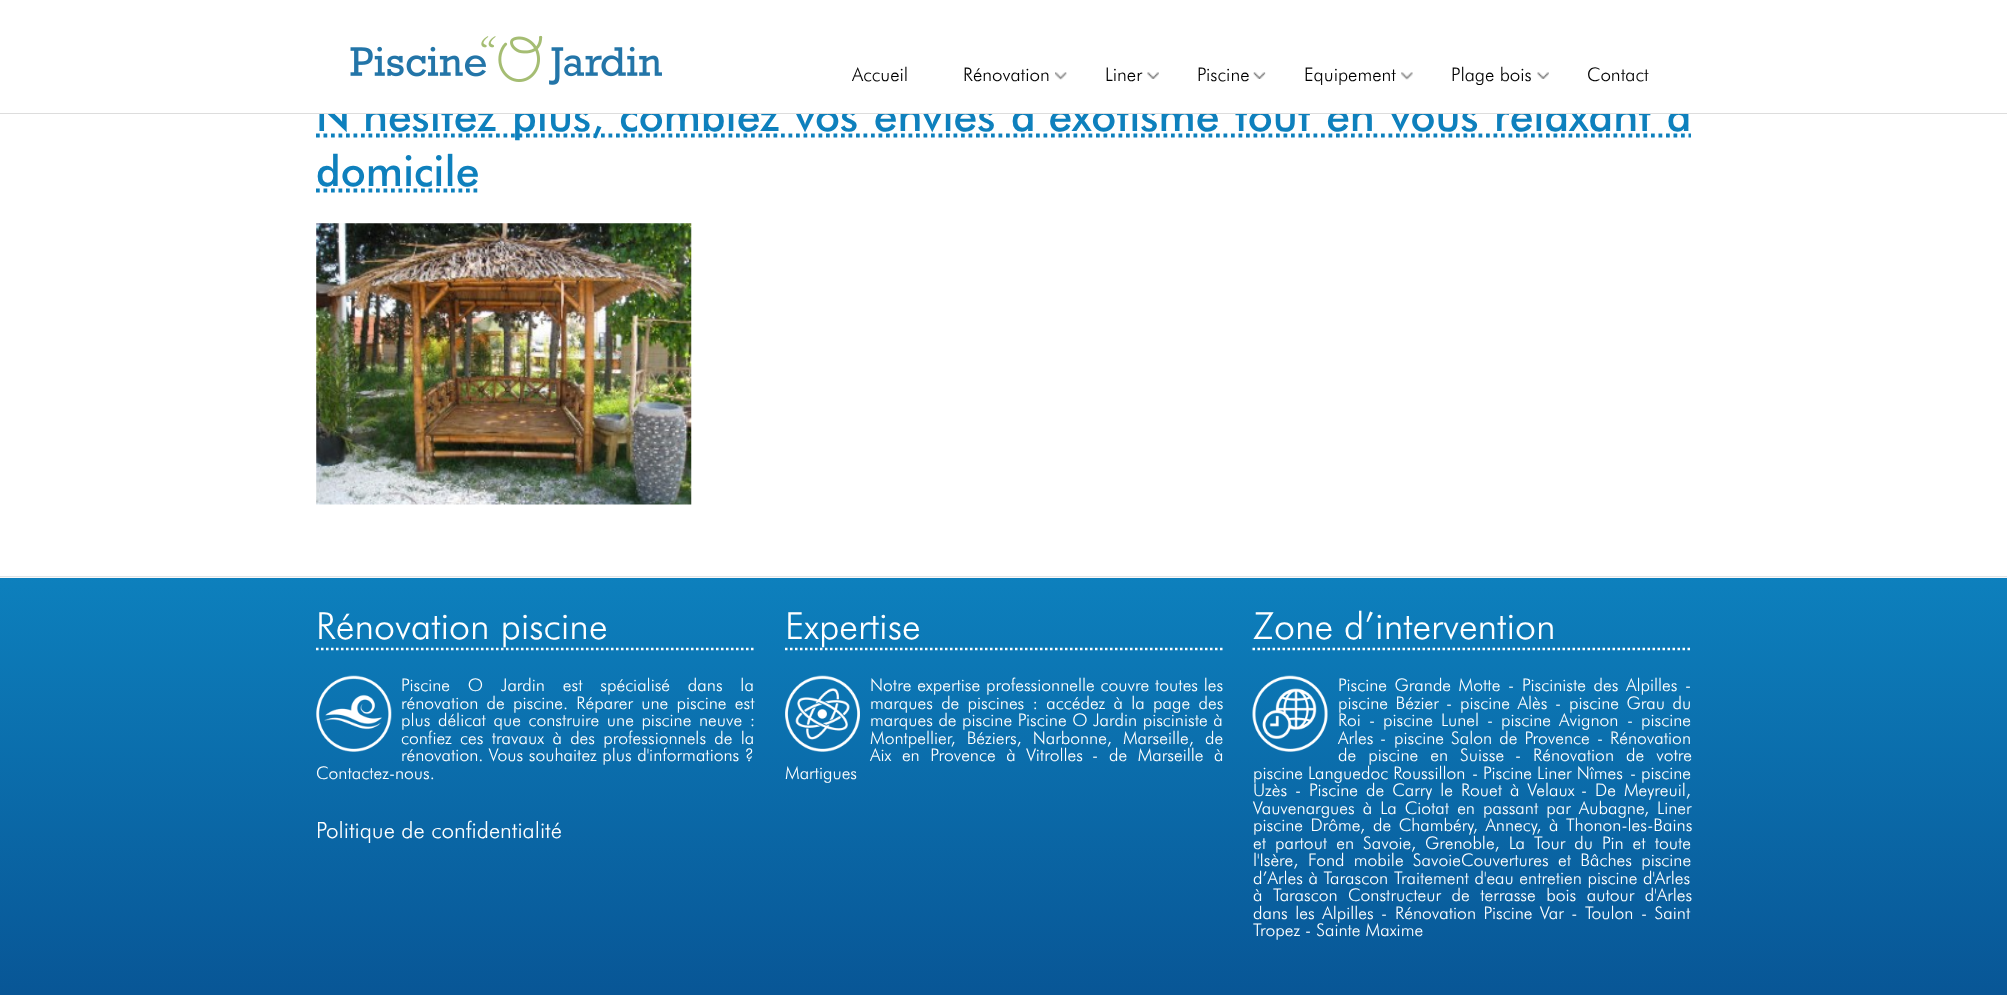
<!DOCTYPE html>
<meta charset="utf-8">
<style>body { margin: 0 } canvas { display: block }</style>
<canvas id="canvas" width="2007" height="995"></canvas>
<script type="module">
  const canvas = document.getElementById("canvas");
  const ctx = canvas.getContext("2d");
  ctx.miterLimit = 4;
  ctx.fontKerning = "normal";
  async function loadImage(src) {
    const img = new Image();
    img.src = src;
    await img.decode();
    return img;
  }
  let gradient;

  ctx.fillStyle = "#ffffff";
  ctx.fillRect(0, 0, 2007, 995);
  ctx.beginPath();
  ctx.moveTo(316, 135.5);
  ctx.lineTo(1691, 135.5);
  ctx.strokeStyle = "#0e80bd";
  ctx.lineWidth = 3.8;
  ctx.setLineDash([3.75, 3.75]);
  ctx.stroke();
  ctx.wordSpacing = "2.75px";
  ctx.font = "500 42.5px Futura";
  ctx.fillStyle = "#0e80bd";
  ctx.fillText("N’hésitez plus, comblez vos envies d’exotisme tout en vous relaxant à", 316, 131);
  ctx.fillStyle = "#ffffff";
  ctx.fillRect(319, 98, 1370, 15);
  ctx.fillStyle = "#dddddd";
  ctx.fillRect(0, 113, 2007, 1);
  ctx.drawImage(await loadImage("img1.png"), 350, 35, 312, 50);
  ctx.wordSpacing = "0px";
  ctx.font = "300 18.75px Futura";
  ctx.fillStyle = "#000000";
  ctx.fillText("Accueil", 852, 81);
  ctx.drawImage(await loadImage("img2.png"), 1055, 72, 12, 8);
  ctx.fillText("Rénovation", 963, 81);
  ctx.drawImage(await loadImage("img3.png"), 1147, 72, 12, 7);
  ctx.fillText("Liner", 1105, 81);
  ctx.drawImage(await loadImage("img4.png"), 1253, 72, 13, 7);
  ctx.fillText("Piscine", 1197, 81);
  ctx.drawImage(await loadImage("img5.png"), 1401, 72, 12, 8);
  ctx.fillText("Equipement", 1304, 81);
  ctx.drawImage(await loadImage("img6.png"), 1537, 72, 12, 7);
  ctx.fillText("Plage bois", 1451, 81);
  ctx.fillText("Contact", 1587, 81);
  ctx.font = "500 42.5px Futura";
  ctx.fillStyle = "#0e80bd";
  ctx.fillText("domicile", 316, 186);
  ctx.beginPath();
  ctx.moveTo(316, 190.5);
  ctx.lineTo(479.5, 190.5);
  ctx.stroke();
  ctx.drawImage(await loadImage("img7.png"), 316, 223, 376, 282);
  ctx.fillStyle = "#f8f8f8";
  ctx.fillRect(0, 577, 2007, 1);
  ctx.fillStyle = "#e1e4e6";
  ctx.fillRect(0, 576, 2007, 1);
  gradient = ctx.createLinearGradient(1004, 577, 1004, 995);
  gradient.addColorStop(0, "#0d80bd");
  gradient.addColorStop(1, "#085696");
  ctx.fillStyle = gradient;
  ctx.fillRect(0, 578, 2007, 417);
  ctx.beginPath();
  ctx.moveTo(316, 649);
  ctx.lineTo(755, 649);
  ctx.strokeStyle = "#ffffff";
  ctx.lineWidth = 2.5;
  ctx.setLineDash([2.5, 2.5]);
  ctx.stroke();
  ctx.font = "300 37.5px Futura";
  ctx.fillStyle = "#ffffff";
  ctx.fillText("Rénovation piscine", 316, 639);
  ctx.drawImage(await loadImage("img8.png"), 316, 675, 76, 77);
  ctx.wordSpacing = "12.75px";
  ctx.font = "300 17.5px Futura";
  ctx.fillText("Piscine O Jardin est spécialisé dans la", 401, 691);
  ctx.wordSpacing = "3.25px";
  ctx.fillText("rénovation de piscine. Réparer une piscine est", 401, 709);
  ctx.wordSpacing = "2.5px";
  ctx.fillText("plus délicat que construire une piscine neuve :", 401, 726);
  ctx.wordSpacing = "3.25px";
  ctx.fillText("confiez ces travaux à des professionnels de la", 401, 744);
  ctx.wordSpacing = "0.5px";
  ctx.fillText("rénovation. Vous souhaitez plus d'informations ?", 401, 761);
  ctx.wordSpacing = "0px";
  ctx.fillText("Contactez-nous.", 316, 779);
  ctx.font = "300 22.5px Futura";
  ctx.fillText("Politique de confidentialité", 316, 838);
  ctx.beginPath();
  ctx.moveTo(785, 649);
  ctx.lineTo(1222.5, 649);
  ctx.stroke();
  ctx.font = "300 37.5px Futura";
  ctx.fillText("Expertise", 785, 639);
  ctx.drawImage(await loadImage("img9.png"), 785, 675, 75, 77);
  ctx.wordSpacing = "0.75px";
  ctx.font = "300 17.5px Futura";
  ctx.fillText("Notre expertise professionnelle couvre toutes les", 870, 691);
  ctx.wordSpacing = "3.25px";
  ctx.fillText("marques de piscines : accédez à la page des", 870, 709);
  ctx.wordSpacing = "0.5px";
  ctx.fillText("marques de piscine Piscine O Jardin pisciniste à", 870, 726);
  ctx.wordSpacing = "6px";
  ctx.fillText("Montpellier, Béziers, Narbonne, Marseille,", 870, 744);
  ctx.wordSpacing = "0px";
  ctx.fillText("de", 1205, 744);
  ctx.wordSpacing = "5.5px";
  ctx.fillText("Aix en Provence à Vitrolles", 870, 761);
  ctx.wordSpacing = "0px";
  ctx.fillText("-", 1092, 761);
  ctx.wordSpacing = "5.5px";
  ctx.fillText("de Marseille à", 1109, 761);
  ctx.wordSpacing = "0px";
  ctx.fillText("Martigues", 785, 779);
  ctx.beginPath();
  ctx.moveTo(1252.5, 649);
  ctx.lineTo(1691, 649);
  ctx.stroke();
  ctx.font = "300 37.5px Futura";
  ctx.fillText("Zone d’intervention", 1253, 639);
  ctx.drawImage(await loadImage("img10.png"), 1252, 675, 76, 77);
  ctx.wordSpacing = "2.5px";
  ctx.font = "300 17.5px Futura";
  ctx.fillText("Piscine Grande Motte", 1338, 691);
  ctx.wordSpacing = "0px";
  ctx.fillText("-", 1508, 691);
  ctx.wordSpacing = "2.5px";
  ctx.fillText("Pisciniste des Alpilles", 1522, 691);
  ctx.wordSpacing = "0px";
  ctx.fillText("-", 1685, 691);
  ctx.wordSpacing = "2.5px";
  ctx.fillText("piscine Bézier", 1338, 709);
  ctx.wordSpacing = "0px";
  ctx.fillText("-", 1446, 709);
  ctx.wordSpacing = "2.5px";
  ctx.fillText("piscine Alès", 1460, 709);
  ctx.wordSpacing = "0px";
  ctx.fillText("-", 1555, 709);
  ctx.wordSpacing = "2.5px";
  ctx.fillText("piscine Grau du", 1569, 709);
  ctx.wordSpacing = "0px";
  ctx.fillText("Roi", 1338, 726);
  ctx.fillText("-", 1369, 726);
  ctx.wordSpacing = "3px";
  ctx.fillText("piscine Lunel", 1383, 726);
  ctx.wordSpacing = "0px";
  ctx.fillText("-", 1487, 726);
  ctx.wordSpacing = "3px";
  ctx.fillText("piscine Avignon", 1501, 726);
  ctx.wordSpacing = "0px";
  ctx.fillText("-", 1627, 726);
  ctx.fillText("piscine", 1641, 726);
  ctx.fillText("Arles", 1338, 744);
  ctx.fillText("-", 1380, 744);
  ctx.wordSpacing = "2px";
  ctx.fillText("piscine Salon de Provence", 1394, 744);
  ctx.wordSpacing = "0px";
  ctx.fillText("-", 1597, 744);
  ctx.fillText("Rénovation", 1610, 744);
  ctx.wordSpacing = "7px";
  ctx.fillText("de piscine en Suisse", 1338, 761);
  ctx.wordSpacing = "0px";
  ctx.fillText("-", 1515, 761);
  ctx.wordSpacing = "7px";
  ctx.fillText("Rénovation de votre", 1533, 761);
  ctx.wordSpacing = "0px";
  ctx.fillText("piscine Languedoc Roussillon", 1253, 779);
  ctx.fillText("-", 1472, 779);
  ctx.fillText("Piscine Liner Nîmes", 1483, 779);
  ctx.fillText("-", 1630, 779);
  ctx.fillText("piscine", 1641, 779);
  ctx.fillText("Uzès", 1253, 796);
  ctx.fillText("-", 1295, 796);
  ctx.wordSpacing = "3px";
  ctx.fillText("Piscine de Carry le Rouet à Velaux", 1309, 796);
  ctx.wordSpacing = "0px";
  ctx.fillText("-", 1581, 796);
  ctx.wordSpacing = "3px";
  ctx.fillText("De Meyreuil,", 1595, 796);
  ctx.fillText("Vauvenargues à La Ciotat en passant par Aubagne", 1253, 814);
  ctx.wordSpacing = "0px";
  ctx.fillText(",", 1644, 814);
  ctx.fillText("Liner", 1657, 814);
  ctx.wordSpacing = "2.5px";
  ctx.fillText("piscine Drôme", 1253, 831);
  ctx.wordSpacing = "0px";
  ctx.fillText(",", 1360, 831);
  ctx.wordSpacing = "2.5px";
  ctx.fillText("de Chambéry, Annecy, à Thonon-les-Bains", 1373, 831);
  ctx.wordSpacing = "4px";
  ctx.fillText("et partout en Savoie", 1253, 849);
  ctx.wordSpacing = "0px";
  ctx.fillText(",", 1411, 849);
  ctx.wordSpacing = "4px";
  ctx.fillText("Grenoble, La Tour du Pin et toute", 1425, 849);
  ctx.wordSpacing = "0px";
  ctx.fillText("l'Isère,", 1253, 866);
  ctx.wordSpacing = "4.25px";
  ctx.fillText("Fond mobile SavoieCouvertures et Bâches piscine", 1308, 866);
  ctx.wordSpacing = "0.5px";
  ctx.fillText("d’Arles à Tarascon", 1253, 884);
  ctx.fillText("Traitement d'eau entretien piscine d'Arles", 1394, 884);
  ctx.wordSpacing = "5.5px";
  ctx.fillText("à Tarascon", 1253, 901);
  ctx.fillText("Constructeur de terrasse bois autour d'Arles", 1348, 901);
  ctx.wordSpacing = "2.5px";
  ctx.fillText("dans les Alpilles", 1253, 919);
  ctx.wordSpacing = "0px";
  ctx.fillText("-", 1381, 919);
  ctx.wordSpacing = "2.5px";
  ctx.fillText("Rénovation Piscine Var - Toulon - Saint", 1395, 919);
  ctx.wordSpacing = "0px";
  ctx.fillText("Tropez - Sainte Maxime", 1253, 936);
</script>
